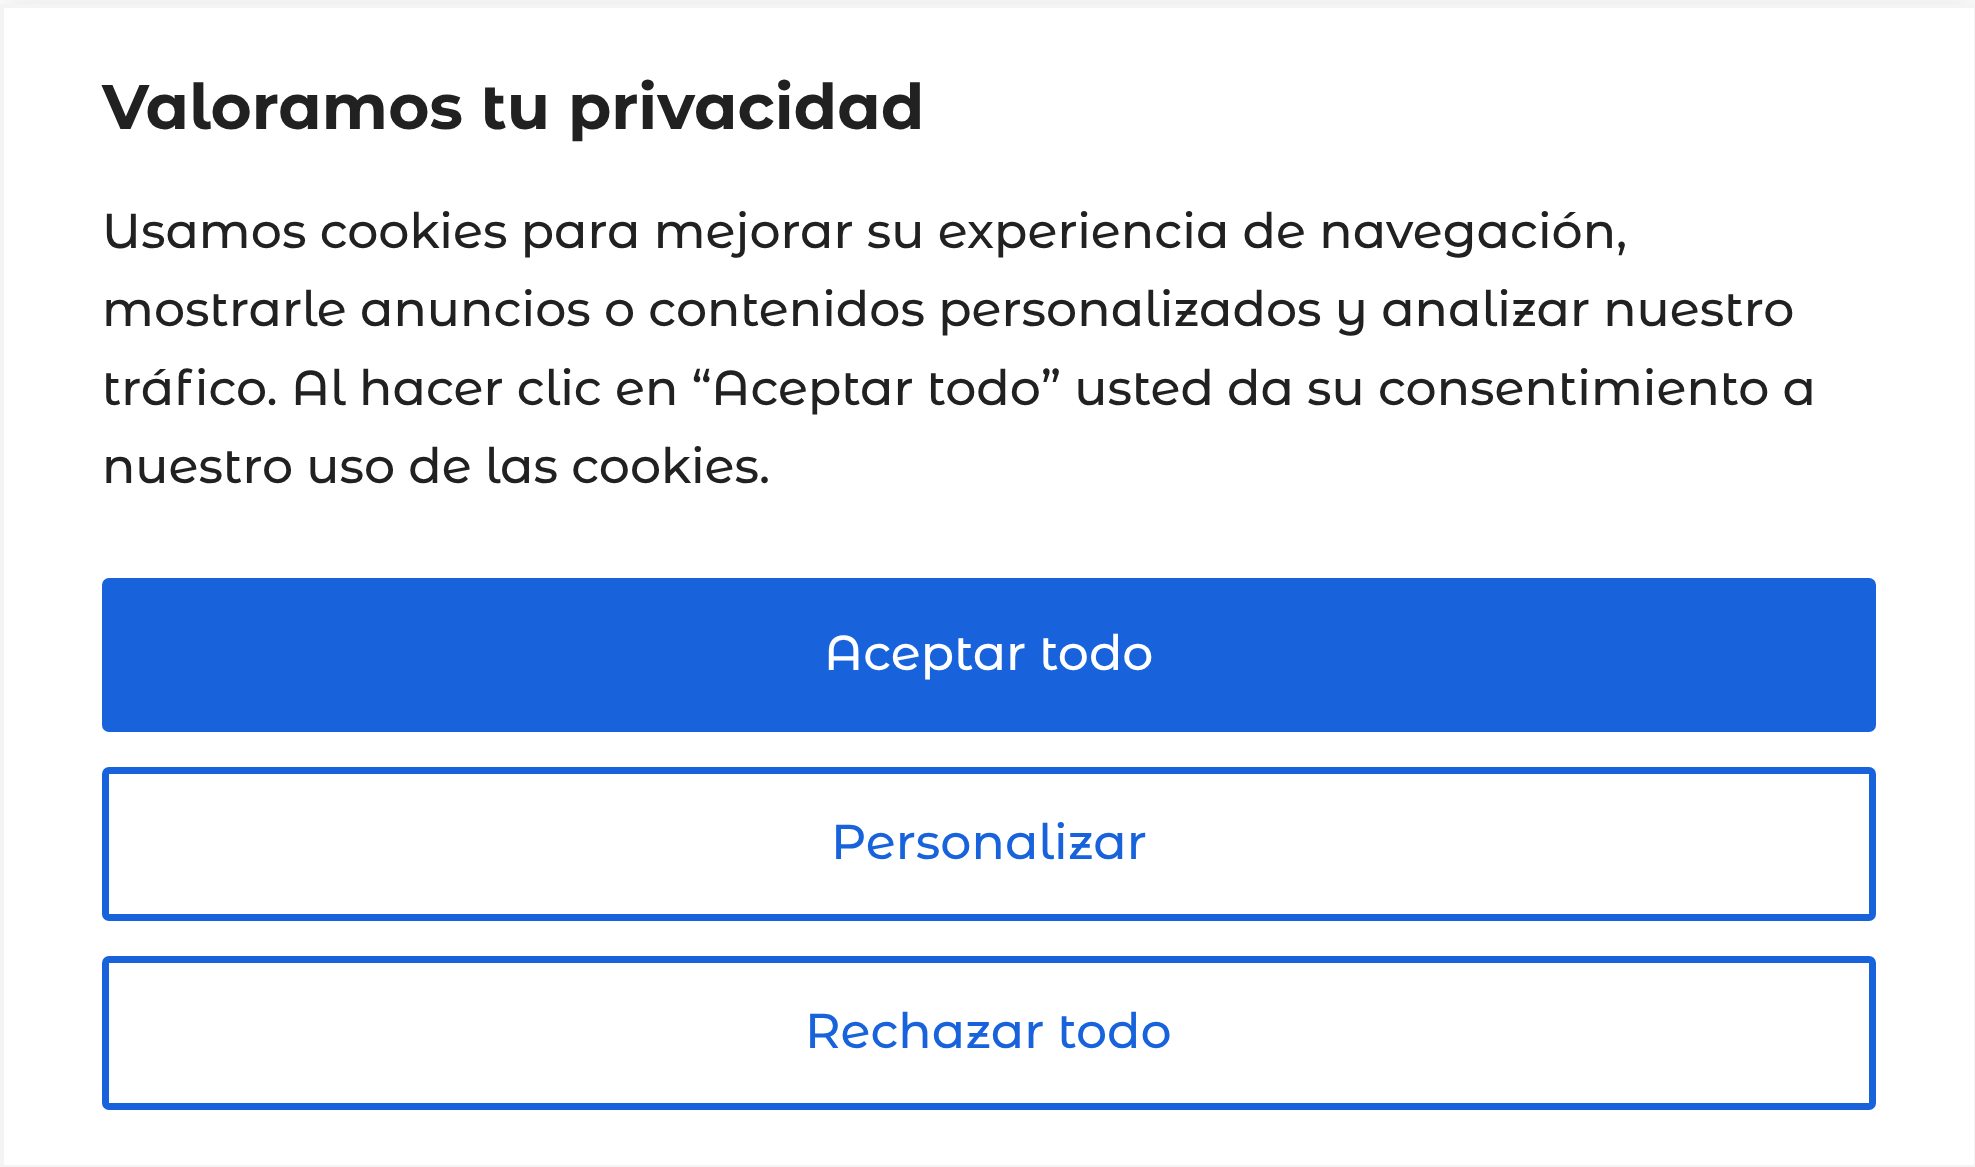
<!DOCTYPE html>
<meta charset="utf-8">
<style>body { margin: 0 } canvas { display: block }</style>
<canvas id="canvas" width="1975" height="1167"></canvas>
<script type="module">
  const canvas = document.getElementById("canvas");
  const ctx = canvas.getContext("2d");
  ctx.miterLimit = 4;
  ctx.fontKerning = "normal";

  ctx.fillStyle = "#ffffff";
  ctx.fillRect(0, 0, 1975, 1167);
  ctx.fillStyle = "rgba(172, 171, 171, 0.3)";
  ctx.filter = "blur(17.5px)";
  ctx.beginPath();
  ctx.rect(0, 0, 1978, 1166);
  ctx.fill();
  ctx.filter = "none";
  ctx.fillStyle = "#ffffff";
  ctx.beginPath();
  ctx.rect(2, 6, 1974, 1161);
  ctx.fill();
  ctx.strokeStyle = "#f4f4f4";
  ctx.lineWidth = 4;
  ctx.stroke();
  ctx.font = "bold 63px Montserrat Alternates";
  ctx.fillStyle = "#212121";
  ctx.fillText("Valoramos tu privacidad", 102, 129);
  ctx.font = "500 49px Montserrat Alternates";
  ctx.fillText("Usamos cookies para mejorar su experiencia de navegación,", 102, 248);
  ctx.fillText("mostrarle anuncios o contenidos personalizados y analizar nuestro", 102, 326);
  ctx.fillText("tráfico. Al hacer clic en “Aceptar todo” usted da su consentimiento a", 102, 405);
  ctx.fillText("nuestro uso de las cookies.", 102, 483);
  ctx.fillStyle = "#1863dc";
  ctx.beginPath();
  ctx.roundRect(105.5, 581.5, 1767, 147, 3.5);
  ctx.fill();
  ctx.strokeStyle = "#1863dc";
  ctx.lineWidth = 7;
  ctx.stroke();
  ctx.fillStyle = "#ffffff";
  ctx.fillText("Aceptar todo", 824, 670);
  ctx.beginPath();
  ctx.roundRect(105.5, 770.5, 1767, 147, 3.5);
  ctx.stroke();
  ctx.fillStyle = "#1863dc";
  ctx.fillText("Personalizar", 831, 859);
  ctx.beginPath();
  ctx.roundRect(105.5, 959.5, 1767, 147, 3.5);
  ctx.stroke();
  ctx.fillText("Rechazar todo", 805, 1048);
</script>
